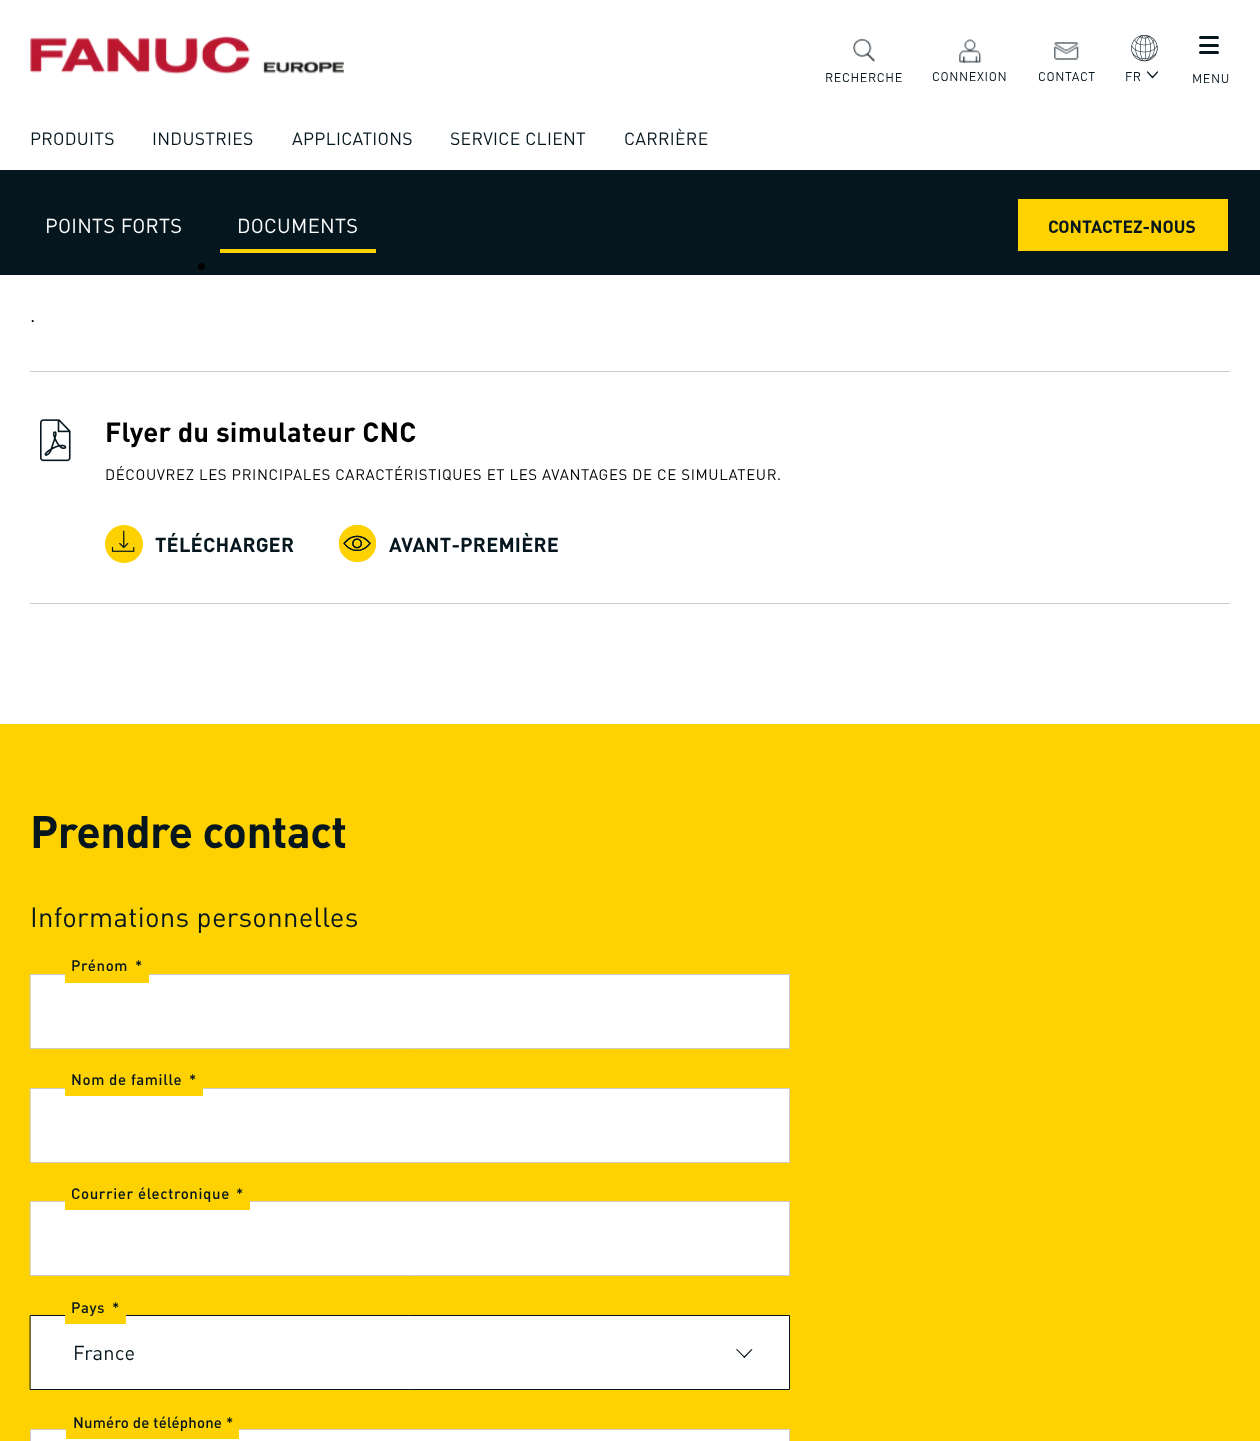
<!DOCTYPE html>
<meta charset="utf-8">
<style>body { margin: 0 } canvas { display: block }</style>
<canvas id="canvas" width="1260" height="1441"></canvas>
<script type="module">
  const canvas = document.getElementById("canvas");
  const ctx = canvas.getContext("2d");
  ctx.miterLimit = 4;
  ctx.fontKerning = "normal";
  async function loadImage(src) {
    const img = new Image();
    img.src = src;
    await img.decode();
    return img;
  }

  ctx.fillStyle = "#ffffff";
  ctx.fillRect(0, 0, 1260, 1441);
  ctx.drawImage(await loadImage("img1.png"), 30, 36, 314, 38);
  ctx.drawImage(await loadImage("img2.png"), 853, 38, 23, 24);
  ctx.letterSpacing = "0.62px";
  ctx.font = "12.5px DIN";
  ctx.fillStyle = "#06161f";
  ctx.fillText("RECHERCHE", 825, 82);
  ctx.drawImage(await loadImage("img3.png"), 959, 39, 23, 24);
  ctx.fillText("CONNEXION", 932, 81);
  ctx.drawImage(await loadImage("img4.png"), 1054, 42, 25, 18);
  ctx.fillText("CONTACT", 1038, 81);
  ctx.drawImage(await loadImage("img5.png"), 1131, 35, 27, 27);
  ctx.fillText("FR", 1125, 81);
  ctx.beginPath();
  ctx.moveTo(1157.5, 72);
  ctx.lineTo(1152.5, 77.5);
  ctx.lineTo(1147.5, 72);
  ctx.strokeStyle = "#06161f";
  ctx.lineWidth = 1.2;
  ctx.lineCap = "round";
  ctx.lineJoin = "round";
  ctx.stroke();
  ctx.beginPath();
  ctx.roundRect(1199, 36, 20, 3, 1.5);
  ctx.fill();
  ctx.beginPath();
  ctx.roundRect(1199, 44, 20, 3, 1.5);
  ctx.fill();
  ctx.beginPath();
  ctx.roundRect(1199, 51, 20, 3, 1.5);
  ctx.fill();
  ctx.fillText("MENU", 1192, 83);
  ctx.letterSpacing = "0.3px";
  ctx.font = "17.5px DIN";
  ctx.fillText("PRODUITS", 30, 145);
  ctx.fillText("INDUSTRIES", 152, 145);
  ctx.fillText("APPLICATIONS", 292, 145);
  ctx.fillText("SERVICE CLIENT", 450, 145);
  ctx.fillText("CARRIÈRE", 624, 145);
  ctx.fillRect(0, 170, 1260, 105);
  ctx.font = "20px DIN";
  ctx.fillStyle = "#ffffff";
  ctx.fillText("POINTS FORTS", 45, 233);
  ctx.fillText("DOCUMENTS", 237, 233);
  ctx.fillStyle = "#fed100";
  ctx.fillRect(220, 249, 156, 4);
  ctx.fillStyle = "#000000";
  ctx.beginPath();
  ctx.arc(201.5, 266.5, 3.5, 0, Math.PI * 2);
  ctx.fill();
  ctx.fillStyle = "#fed100";
  ctx.fillRect(1018, 199, 210, 52);
  ctx.letterSpacing = "0px";
  ctx.font = "bold 17.5px DIN";
  ctx.fillStyle = "#06161f";
  ctx.fillText("CONTACTEZ-NOUS", 1048, 233);
  ctx.font = "20px DIN";
  ctx.fillStyle = "#000000";
  ctx.fillText(".", 30, 322);
  ctx.fillStyle = "#cccccc";
  ctx.fillRect(30, 371, 1200, 1);
  ctx.fillRect(30, 603, 1200, 1);
  ctx.drawImage(await loadImage("img6.png"), 40, 419, 31, 43);
  ctx.letterSpacing = "0.2px";
  ctx.font = "bold 27.5px DIN";
  ctx.fillStyle = "#000000";
  ctx.fillText("Flyer du simulateur CNC", 105, 442);
  ctx.letterSpacing = "0.62px";
  ctx.font = "15px DIN";
  ctx.fillText("DÉCOUVREZ LES PRINCIPALES CARACTÉRISTIQUES ET LES AVANTAGES DE CE SIMULATEUR.", 105, 480);
  ctx.drawImage(await loadImage("img7.png"), 105, 525, 38, 38);
  ctx.letterSpacing = "0.2px";
  ctx.font = "bold 20px DIN";
  ctx.fillStyle = "#06161f";
  ctx.fillText("TÉLÉCHARGER", 155, 552);
  ctx.drawImage(await loadImage("img8.png"), 338, 524, 39, 39);
  ctx.fillText("AVANT-PREMIÈRE", 389, 552);
  ctx.fillStyle = "#fed100";
  ctx.fillRect(0, 724, 1260, 717);
  ctx.letterSpacing = "-0.6px";
  ctx.font = "bold 45px DIN";
  ctx.fillStyle = "#06161f";
  ctx.fillText("Prendre contact", 30, 848);
  ctx.letterSpacing = "0.3px";
  ctx.font = "27.5px DIN";
  ctx.fillText("Informations personnelles", 30, 927);
  ctx.fillStyle = "#ffffff";
  ctx.beginPath();
  ctx.rect(30.5, 974.5, 759, 74);
  ctx.fill();
  ctx.strokeStyle = "#cccccc";
  ctx.lineWidth = 1;
  ctx.lineJoin = "miter";
  ctx.stroke();
  ctx.fillStyle = "#fed100";
  ctx.fillRect(65, 974, 84, 9);
  ctx.letterSpacing = "0.62px";
  ctx.font = "500 15px DIN";
  ctx.fillStyle = "#06161f";
  ctx.fillText("Prénom", 71, 971);
  ctx.fillText("*", 135, 971);
  ctx.fillStyle = "#ffffff";
  ctx.beginPath();
  ctx.rect(30.5, 1088.5, 759, 74);
  ctx.fill();
  ctx.stroke();
  ctx.fillStyle = "#fed100";
  ctx.fillRect(65, 1088, 138, 8);
  ctx.fillStyle = "#06161f";
  ctx.fillText("Nom de famille", 71, 1085);
  ctx.fillText("*", 189, 1085);
  ctx.fillStyle = "#ffffff";
  ctx.beginPath();
  ctx.rect(30.5, 1201.5, 759, 74);
  ctx.fill();
  ctx.stroke();
  ctx.fillStyle = "#fed100";
  ctx.fillRect(65, 1201, 185, 9);
  ctx.fillStyle = "#06161f";
  ctx.fillText("Courrier électronique", 71, 1199);
  ctx.fillText("*", 236, 1199);
  ctx.fillStyle = "#ffffff";
  ctx.beginPath();
  ctx.rect(30.5, 1315.5, 759, 74);
  ctx.fill();
  ctx.strokeStyle = "#06161f";
  ctx.stroke();
  ctx.fillStyle = "#fed100";
  ctx.fillRect(65, 1315, 61, 9);
  ctx.fillStyle = "#06161f";
  ctx.fillText("Pays", 71, 1313);
  ctx.fillText("*", 112, 1313);
  ctx.letterSpacing = "0.2px";
  ctx.font = "20px DIN";
  ctx.fillText("France", 73, 1360);
  ctx.beginPath();
  ctx.moveTo(737, 1349);
  ctx.lineTo(745, 1357);
  ctx.lineTo(744.5, 1358);
  ctx.lineTo(736, 1349.5);
  ctx.closePath();
  ctx.fill();
  ctx.beginPath();
  ctx.moveTo(743.5, 1357);
  ctx.lineTo(751.5, 1349);
  ctx.lineTo(752.5, 1349.5);
  ctx.lineTo(744.5, 1358);
  ctx.closePath();
  ctx.fill();
  ctx.strokeStyle = "#cccccc";
  ctx.strokeRect(30.5, 1429.5, 759, 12);
  ctx.fillStyle = "#ffffff";
  ctx.fillRect(31, 1430, 758, 11);
  ctx.fillStyle = "#fed100";
  ctx.fillRect(66, 1429, 173, 10);
  ctx.font = "500 15px DIN";
  ctx.fillStyle = "#06161f";
  ctx.fillText("Numéro de téléphone *", 73, 1428);
</script>
